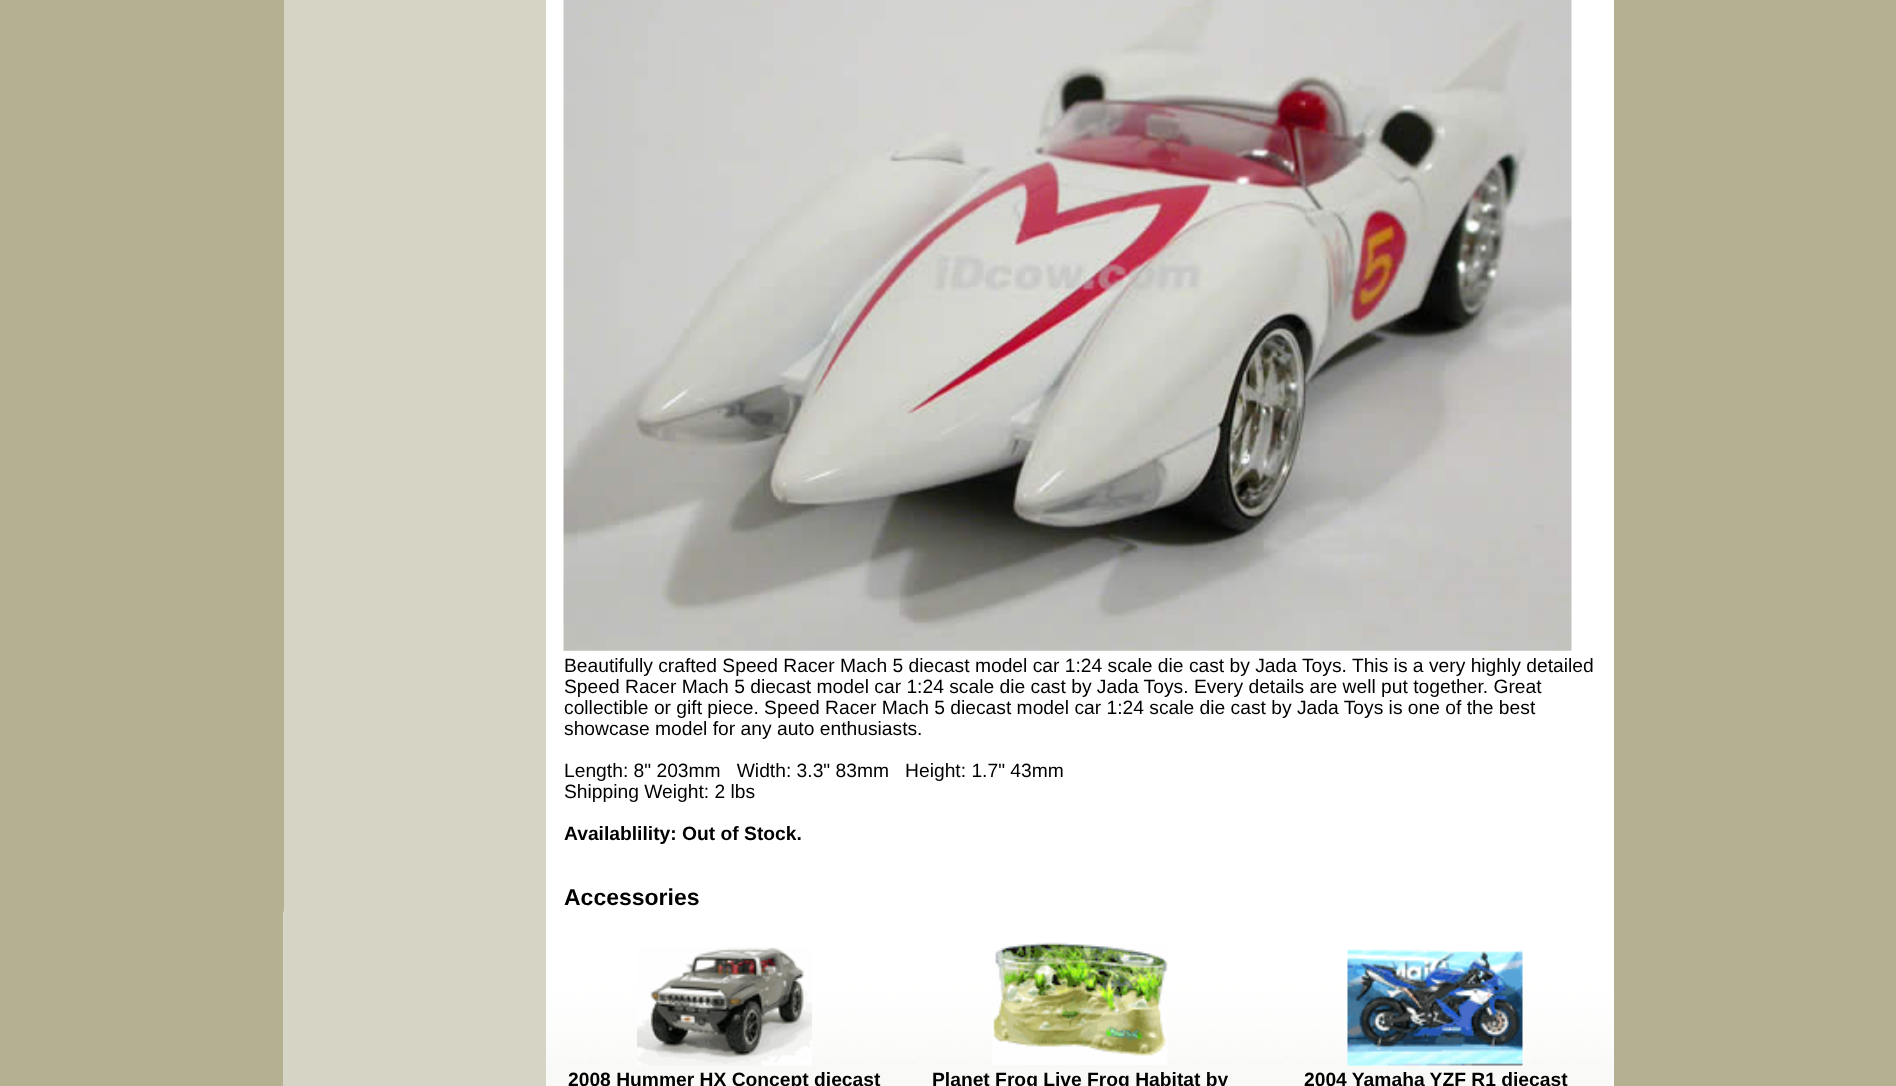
<!DOCTYPE html>
<meta charset="utf-8">
<style>body { margin: 0 } canvas { display: block }</style>
<canvas id="canvas" width="1896" height="1086"></canvas>
<script type="module">
  const canvas = document.getElementById("canvas");
  const ctx = canvas.getContext("2d");
  ctx.miterLimit = 4;
  ctx.fontKerning = "normal";
  async function loadImage(src) {
    const img = new Image();
    img.src = src;
    await img.decode();
    return img;
  }

  ctx.fillStyle = "#b4b092";
  ctx.fillRect(0, 0, 1896, 1086);
  ctx.fillStyle = "#ffffff";
  ctx.fillRect(546, 0, 1068, 1086);
  ctx.drawImage(await loadImage("img1.png"), 283, 911, 1331, 175);
  ctx.fillStyle = "#d6d5c5";
  ctx.fillRect(284, 0, 262, 1086);
  ctx.drawImage(await loadImage("img2.png"), 563, 0, 1009, 651);
  ctx.font = "19.25px Liberation Sans";
  ctx.fillStyle = "#000000";
  ctx.fillText("Beautifully crafted Speed Racer Mach 5 diecast model car 1:24 scale die cast by Jada Toys. This is a very highly detailed", 564, 672);
  ctx.fillText("Speed Racer Mach 5 diecast model car 1:24 scale die cast by Jada Toys. Every details are well put together. Great", 564, 693);
  ctx.fillText("collectible or gift piece. Speed Racer Mach 5 diecast model car 1:24 scale die cast by Jada Toys is one of the best", 564, 714);
  ctx.fillText("showcase model for any auto enthusiasts.", 564, 735);
  ctx.fillText("Length: 8\" 203mm   Width: 3.3\" 83mm   Height: 1.7\" 43mm", 564, 777);
  ctx.fillText("Shipping Weight: 2 lbs", 564, 798);
  ctx.font = "bold 19.25px Liberation Sans";
  ctx.fillText("Availablility: Out of Stock.", 564, 840);
  ctx.font = "bold 23px Liberation Sans";
  ctx.fillText("Accessories", 564, 905);
  ctx.drawImage(await loadImage("img3.png"), 637, 947, 175, 119);
  ctx.font = "bold 19.25px Liberation Sans";
  ctx.fillText("2008 Hummer HX Concept diecast", 568, 1086);
  ctx.drawImage(await loadImage("img4.png"), 992, 942, 176, 123);
  ctx.fillText("Planet Frog Live Frog Habitat by", 932, 1086);
  ctx.drawImage(await loadImage("img5.png"), 1347, 949, 176, 117);
  ctx.fillText("2004 Yamaha YZF R1 diecast", 1304, 1086);
</script>
